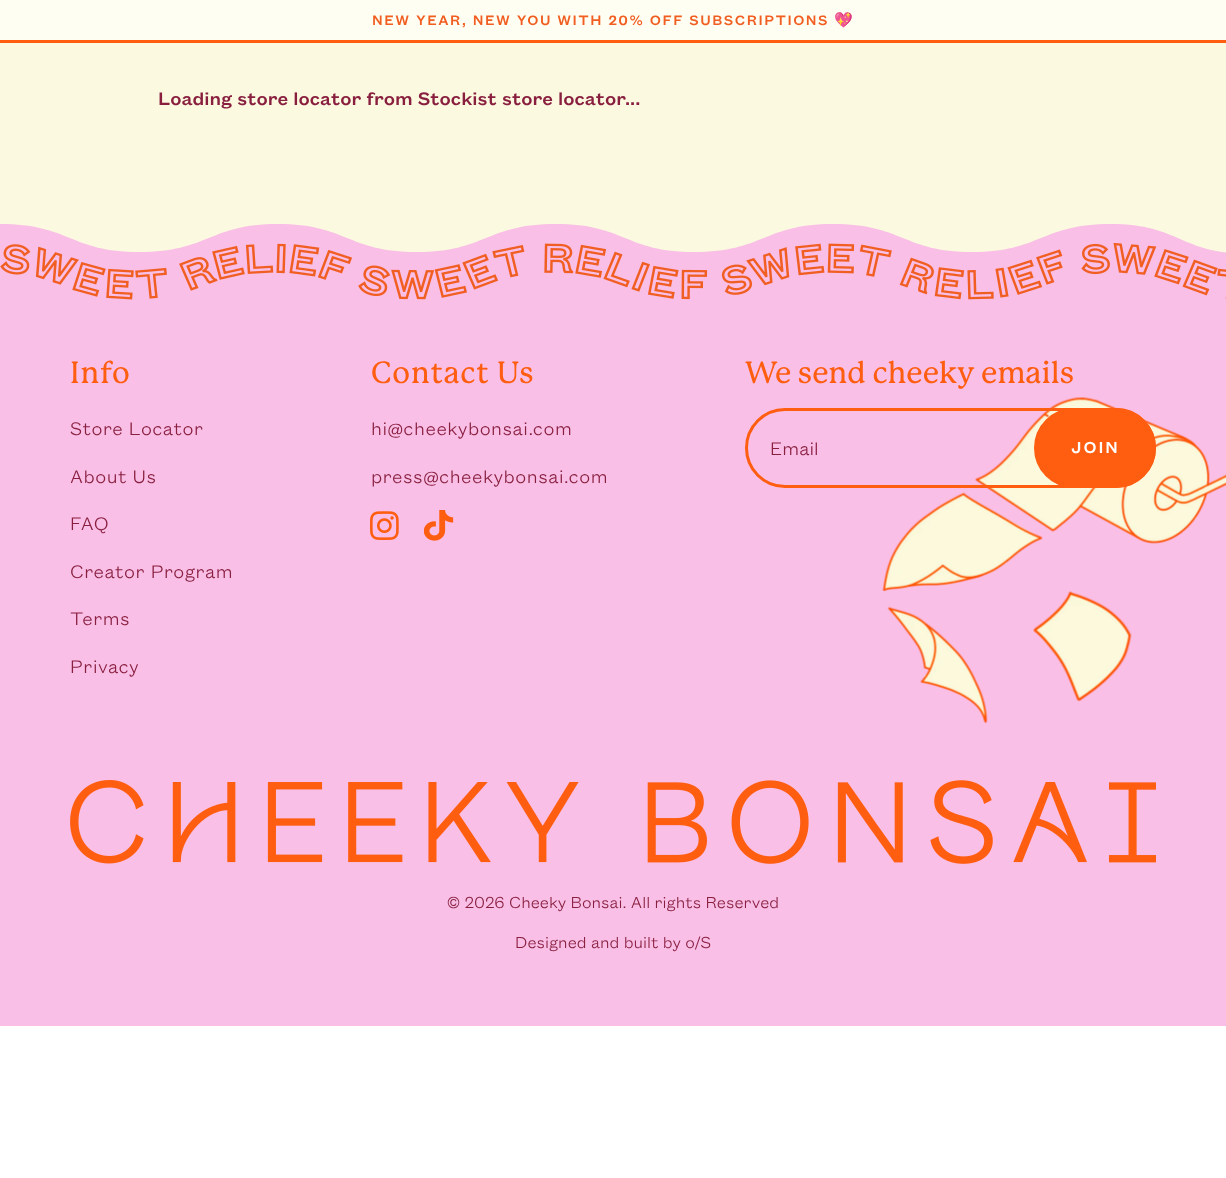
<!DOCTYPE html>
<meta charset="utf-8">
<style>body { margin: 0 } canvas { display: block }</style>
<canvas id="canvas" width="1226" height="1178"></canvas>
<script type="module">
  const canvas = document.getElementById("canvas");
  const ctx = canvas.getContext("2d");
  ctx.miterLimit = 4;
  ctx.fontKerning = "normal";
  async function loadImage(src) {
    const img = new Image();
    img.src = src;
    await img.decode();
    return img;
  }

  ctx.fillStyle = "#ffffff";
  ctx.fillRect(0, 0, 1226, 1178);
  ctx.fillStyle = "#fbf9df";
  ctx.fillRect(0, 43, 1226, 210);
  ctx.fillStyle = "#fffef2";
  ctx.fillRect(0, 0, 1226, 40);
  ctx.fillStyle = "#ff5d10";
  ctx.fillRect(0, 40, 1226, 3);
  ctx.letterSpacing = "1.5px";
  ctx.font = "500 15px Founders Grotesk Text";
  ctx.fillStyle = "#f15e22";
  ctx.fillText("NEW YEAR, NEW YOU WITH 20% OFF SUBSCRIPTIONS", 372, 25);
  ctx.font = "15px Noto Color Emoji";
  ctx.fillText("💖", 834, 25);
  ctx.letterSpacing = "0px";
  ctx.font = "500 20px Founders Grotesk Text";
  ctx.fillStyle = "#891f3f";
  ctx.fillText("Loading store locator from Stockist store locator...", 158, 105);
  ctx.fillStyle = "#f9bfe6";
  ctx.fillRect(0, 254, 1226, 772);
  ctx.beginPath();
  ctx.moveTo(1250, 254);
  ctx.bezierCurveTo(1180, 254, 1180, 224, 1111, 224);
  ctx.bezierCurveTo(1041, 224, 1041, 252, 972, 252);
  ctx.bezierCurveTo(903, 252, 903, 224, 833, 224);
  ctx.bezierCurveTo(764, 224, 764, 252, 694, 252);
  ctx.bezierCurveTo(625, 252, 625, 224, 556, 224);
  ctx.bezierCurveTo(486, 224, 486, 252, 417, 252);
  ctx.bezierCurveTo(347, 252, 347, 224, 278, 224);
  ctx.bezierCurveTo(209, 224, 209, 252, 139, 252);
  ctx.bezierCurveTo(70, 252, 70, 224, 0, 224);
  ctx.lineTo(0, 254);
  ctx.closePath();
  ctx.fill();
  ctx.drawImage(await loadImage("img1.png"), 0, 243, 1226, 57);
  ctx.letterSpacing = "0.75px";
  ctx.font = "500 30px 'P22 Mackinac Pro'";
  ctx.fillStyle = "#ff5d10";
  ctx.fillText("Info", 70, 383);
  ctx.letterSpacing = "0.5px";
  ctx.font = "300 20px Founders Grotesk Text";
  ctx.fillStyle = "#891f3f";
  ctx.fillText("Store Locator", 70, 435);
  ctx.fillText("About Us", 70, 483);
  ctx.fillText("FAQ", 70, 530);
  ctx.fillText("Creator Program", 70, 578);
  ctx.fillText("Terms", 70, 625);
  ctx.fillText("Privacy", 70, 673);
  ctx.letterSpacing = "0.75px";
  ctx.font = "500 30px 'P22 Mackinac Pro'";
  ctx.fillStyle = "#ff5d10";
  ctx.fillText("Contact Us", 371, 383);
  ctx.letterSpacing = "0.5px";
  ctx.font = "300 20px Founders Grotesk Text";
  ctx.fillStyle = "#891f3f";
  ctx.fillText("hi@cheekybonsai.com", 371, 435);
  ctx.fillText("press@cheekybonsai.com", 371, 483);
  ctx.drawImage(await loadImage("img2.png"), 370, 511, 29, 29);
  ctx.drawImage(await loadImage("img3.png"), 424, 510, 30, 31);
  ctx.letterSpacing = "0px";
  ctx.font = "500 30px 'P22 Mackinac Pro'";
  ctx.fillStyle = "#ff5d10";
  ctx.fillText("We send cheeky emails", 745, 383);
  ctx.drawImage(await loadImage("img4.png"), 882, 397, 344, 326);
  ctx.beginPath();
  ctx.roundRect(746.5, 409.5, 408, 77, 38.5);
  ctx.strokeStyle = "#ff5d10";
  ctx.lineWidth = 3;
  ctx.stroke();
  ctx.font = "300 20px Founders Grotesk Text";
  ctx.fillStyle = "#891f3f";
  ctx.fillText("Email", 770, 455);
  ctx.fillStyle = "#ff5d10";
  ctx.beginPath();
  ctx.roundRect(1035.5, 409.5, 119, 77, 38.5);
  ctx.fill();
  ctx.stroke();
  ctx.letterSpacing = "2px";
  ctx.font = "500 17.5px Founders Grotesk Text";
  ctx.fillStyle = "#ffffff";
  ctx.fillText("JOIN", 1071, 453);
  ctx.drawImage(await loadImage("img5.png"), 70, 780, 1086, 84);
  ctx.letterSpacing = "0px";
  ctx.font = "300 17.5px Founders Grotesk Text";
  ctx.fillStyle = "#891f3f";
  ctx.fillText("© 2026 Cheeky Bonsai. All rights Reserved", 447, 908);
  ctx.fillText("Designed and built by o/S", 515, 948);
</script>
